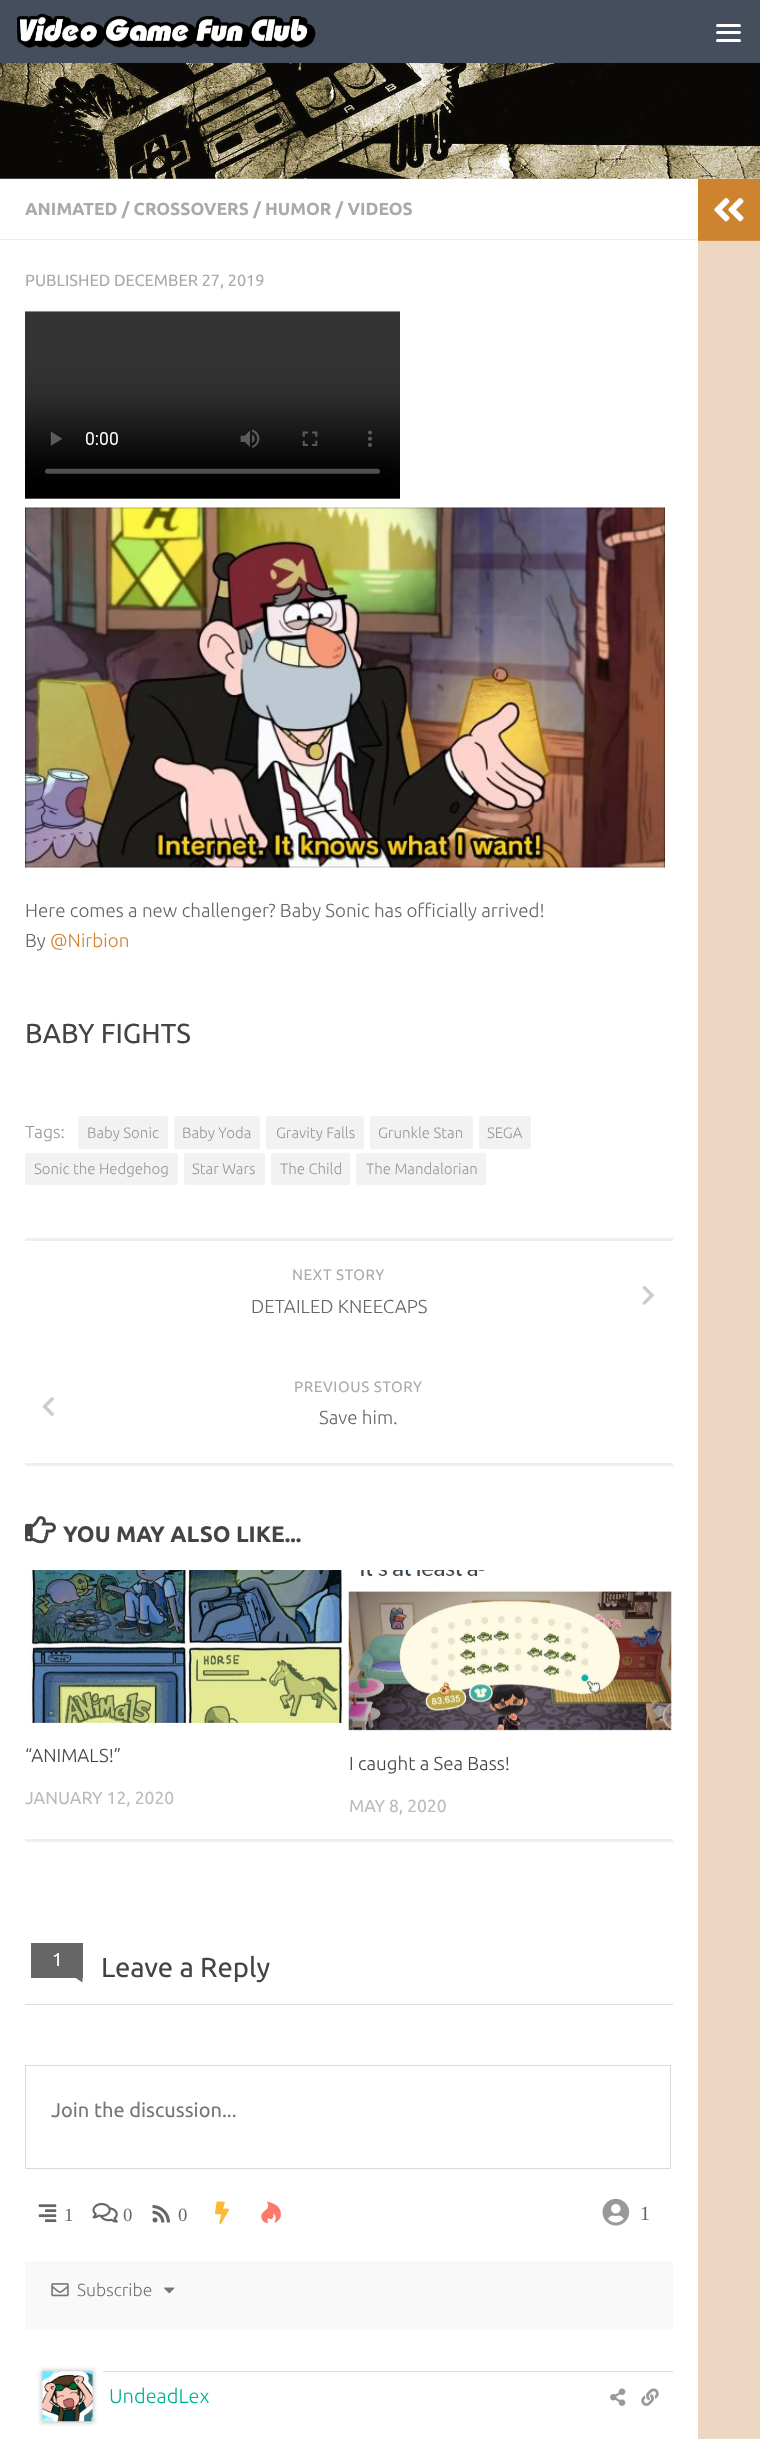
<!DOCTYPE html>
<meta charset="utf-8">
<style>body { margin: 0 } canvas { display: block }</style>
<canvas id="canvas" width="760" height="2439"></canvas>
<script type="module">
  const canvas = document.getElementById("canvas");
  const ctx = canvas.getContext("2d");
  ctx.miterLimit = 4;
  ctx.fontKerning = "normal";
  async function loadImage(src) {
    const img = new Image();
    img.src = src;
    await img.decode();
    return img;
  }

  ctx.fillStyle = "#ffffff";
  ctx.fillRect(0, 0, 760, 2439);
  ctx.fillStyle = "#454e5c";
  ctx.fillRect(0, 0, 760, 63);
  ctx.drawImage(await loadImage("img1.png"), 17, 13, 299, 35);
  ctx.fillStyle = "#ffffff";
  ctx.beginPath();
  ctx.roundRect(716, 24, 25, 3, 1.5);
  ctx.fill();
  ctx.beginPath();
  ctx.roundRect(716, 31, 25, 3, 1.5);
  ctx.fill();
  ctx.beginPath();
  ctx.roundRect(716, 39, 25, 3, 1.5);
  ctx.fill();
  ctx.drawImage(await loadImage("img2.png"), 0, 63, 760, 116);
  ctx.fillStyle = "#eeeeee";
  ctx.fillRect(0, 239, 698, 1);
  ctx.font = "bold 17.5px Ubuntu";
  ctx.fillStyle = "#aaaaaa";
  ctx.fillText("ANIMATED / CROSSOVERS / HUMOR / VIDEOS", 25, 215);
  ctx.font = "16.25px Ubuntu";
  ctx.fillText("PUBLISHED DECEMBER 27, 2019", 25, 286);
  ctx.drawImage(await loadImage("img3.png"), 25, 311, 375, 188);
  ctx.drawImage(await loadImage("img4.png"), 25, 507, 640, 361);
  ctx.font = "300 18.75px Ubuntu";
  ctx.fillStyle = "#666666";
  ctx.fillText("Here comes a new challenger? Baby Sonic has officially arrived!", 25, 917);
  ctx.fillText("By", 25, 947);
  ctx.fillStyle = "#ce842f";
  ctx.fillText("@Nirbion", 50, 947);
  ctx.font = "27.5px Ubuntu";
  ctx.fillStyle = "#444444";
  ctx.fillText("BABY FIGHTS", 25, 1043);
  ctx.font = "300 17.5px Ubuntu";
  ctx.fillStyle = "#999999";
  ctx.fillText("Tags:", 25, 1138);
  ctx.fillStyle = "#f2f2f2";
  ctx.beginPath();
  ctx.roundRect(78, 1116, 90, 33, 2.5);
  ctx.fill();
  ctx.font = "300 15px Ubuntu";
  ctx.fillStyle = "#999999";
  ctx.fillText("Baby Sonic", 87, 1138);
  ctx.fillStyle = "#f2f2f2";
  ctx.beginPath();
  ctx.roundRect(174, 1116, 86, 33, 2.5);
  ctx.fill();
  ctx.fillStyle = "#999999";
  ctx.fillText("Baby Yoda", 182, 1138);
  ctx.fillStyle = "#f2f2f2";
  ctx.beginPath();
  ctx.roundRect(266, 1116, 98, 33, 2.5);
  ctx.fill();
  ctx.fillStyle = "#999999";
  ctx.fillText("Gravity Falls", 276, 1138);
  ctx.fillStyle = "#f2f2f2";
  ctx.beginPath();
  ctx.roundRect(370, 1116, 103, 33, 2.5);
  ctx.fill();
  ctx.fillStyle = "#999999";
  ctx.fillText("Grunkle Stan", 378, 1138);
  ctx.fillStyle = "#f2f2f2";
  ctx.beginPath();
  ctx.roundRect(479, 1116, 52, 33, 2.5);
  ctx.fill();
  ctx.fillStyle = "#999999";
  ctx.fillText("SEGA", 487, 1138);
  ctx.fillStyle = "#f2f2f2";
  ctx.beginPath();
  ctx.roundRect(25, 1153, 153, 32, 2.5);
  ctx.fill();
  ctx.fillStyle = "#999999";
  ctx.fillText("Sonic the Hedgehog", 34, 1174);
  ctx.fillStyle = "#f2f2f2";
  ctx.beginPath();
  ctx.roundRect(184, 1153, 81, 32, 2.5);
  ctx.fill();
  ctx.fillStyle = "#999999";
  ctx.fillText("Star Wars", 192, 1174);
  ctx.fillStyle = "#f2f2f2";
  ctx.beginPath();
  ctx.roundRect(271, 1153, 79, 32, 2.5);
  ctx.fill();
  ctx.fillStyle = "#999999";
  ctx.fillText("The Child", 280, 1174);
  ctx.fillStyle = "#f2f2f2";
  ctx.beginPath();
  ctx.roundRect(356, 1153, 130, 32, 2.5);
  ctx.fill();
  ctx.fillStyle = "#999999";
  ctx.fillText("The Mandalorian", 366, 1174);
  ctx.fillStyle = "#eeeeee";
  ctx.fillRect(25, 1238, 648, 3);
  ctx.fillRect(25, 1463, 648, 3);
  ctx.letterSpacing = "0.6px";
  ctx.font = "15px Ubuntu";
  ctx.fillStyle = "#aaaaaa";
  ctx.fillText("NEXT STORY", 292, 1280);
  ctx.drawImage(await loadImage("img5.png"), 642, 1285, 12, 20);
  ctx.letterSpacing = "0px";
  ctx.font = "300 18.75px Ubuntu";
  ctx.fillStyle = "#666666";
  ctx.fillText("DETAILED KNEECAPS", 251, 1313);
  ctx.letterSpacing = "0.6px";
  ctx.font = "15px Ubuntu";
  ctx.fillStyle = "#aaaaaa";
  ctx.fillText("PREVIOUS STORY", 294, 1392);
  ctx.drawImage(await loadImage("img6.png"), 42, 1397, 12, 19);
  ctx.letterSpacing = "0px";
  ctx.font = "300 18.75px Ubuntu";
  ctx.fillStyle = "#666666";
  ctx.fillText("Save him.", 319, 1424);
  ctx.drawImage(await loadImage("img7.png"), 25, 1516, 31, 28);
  ctx.font = "bold 22.5px Ubuntu";
  ctx.fillStyle = "#444444";
  ctx.fillText("YOU MAY ALSO LIKE...", 63, 1542);
  ctx.fillStyle = "#eeeeee";
  ctx.fillRect(25, 1839, 648, 3);
  ctx.drawImage(await loadImage("img8.png"), 25, 1570, 318, 153);
  ctx.font = "300 18.75px Ubuntu";
  ctx.fillStyle = "#444444";
  ctx.fillText("“ANIMALS!”", 25, 1762);
  ctx.font = "17.5px Ubuntu";
  ctx.fillStyle = "#bbbbbb";
  ctx.fillText("JANUARY 12, 2020", 25, 1804);
  ctx.drawImage(await loadImage("img9.png"), 348, 1570, 324, 161);
  ctx.font = "300 18.75px Ubuntu";
  ctx.fillStyle = "#444444";
  ctx.fillText("I caught a Sea Bass!", 349, 1770);
  ctx.font = "17.5px Ubuntu";
  ctx.fillStyle = "#bbbbbb";
  ctx.fillText("MAY 8, 2020", 349, 1812);
  ctx.fillStyle = "#666666";
  ctx.beginPath();
  ctx.moveTo(67.5, 1972.5);
  ctx.lineTo(82.5, 1972.5);
  ctx.lineTo(82.5, 1982.5);
  ctx.closePath();
  ctx.fill();
  ctx.fillRect(31, 1943, 52, 35);
  ctx.font = "18.75px Ubuntu";
  ctx.fillStyle = "#ffffff";
  ctx.fillText("1", 52, 1966);
  ctx.font = "27.5px Ubuntu";
  ctx.fillStyle = "#444444";
  ctx.fillText("Leave a Reply", 101, 1977);
  ctx.fillStyle = "#dddddd";
  ctx.fillRect(25, 2004, 648, 1);
  ctx.strokeStyle = "#d9d9d9";
  ctx.strokeRect(25.5, 2065.5, 645, 103);
  ctx.font = "20px Ubuntu";
  ctx.fillStyle = "#777777";
  ctx.fillText("Join the discussion...", 51, 2117);
  ctx.drawImage(await loadImage("img10.png"), 38, 2204, 19, 19);
  ctx.font = "18.75px Liberation Serif";
  ctx.fillStyle = "#666666";
  ctx.fillText("1", 64, 2221);
  ctx.drawImage(await loadImage("img11.png"), 92, 2203, 26, 20);
  ctx.fillText("0", 123, 2221);
  ctx.drawImage(await loadImage("img12.png"), 152, 2205, 18, 18);
  ctx.fillText("0", 178, 2221);
  ctx.drawImage(await loadImage("img13.png"), 215, 2201, 14, 23);
  ctx.drawImage(await loadImage("img14.png"), 261, 2201, 20, 23);
  ctx.drawImage(await loadImage("img15.png"), 602, 2198, 28, 28);
  ctx.font = "20px Liberation Serif";
  ctx.fillText("1", 640, 2220);
  ctx.fillStyle = "#f9f9f9";
  ctx.fillRect(25, 2261, 648, 69);
  ctx.drawImage(await loadImage("img16.png"), 51, 2283, 18, 14);
  ctx.font = "300 17.5px Ubuntu";
  ctx.fillStyle = "#777777";
  ctx.fillText("Subscribe", 77, 2296);
  ctx.drawImage(await loadImage("img17.png"), 164, 2287, 11, 7);
  ctx.fillStyle = "rgba(0, 0, 0, 0.2)";
  ctx.filter = "blur(2px)";
  ctx.beginPath();
  ctx.rect(41, 2370, 53, 53);
  ctx.fill();
  ctx.filter = "none";
  ctx.drawImage(await loadImage("img18.png"), 42, 2371, 51, 51);
  ctx.fillStyle = "#dedede";
  ctx.fillRect(103, 2371, 570, 1);
  ctx.font = "300 20px Ubuntu";
  ctx.fillStyle = "#00b38f";
  ctx.fillText("UndeadLex", 109, 2403);
  ctx.drawImage(await loadImage("img19.png"), 610, 2388, 16, 18);
  ctx.drawImage(await loadImage("img20.png"), 641, 2388, 18, 18);
  ctx.fillStyle = "#ce842f";
  ctx.fillRect(698, 179, 62, 61);
  ctx.fillStyle = "#d39044";
  ctx.fillRect(698, 240, 62, 1);
  ctx.drawImage(await loadImage("img21.png"), 714, 198, 30, 24);
  ctx.fillStyle = "#edd7c2";
  ctx.fillRect(698, 241, 62, 2198);
</script>
